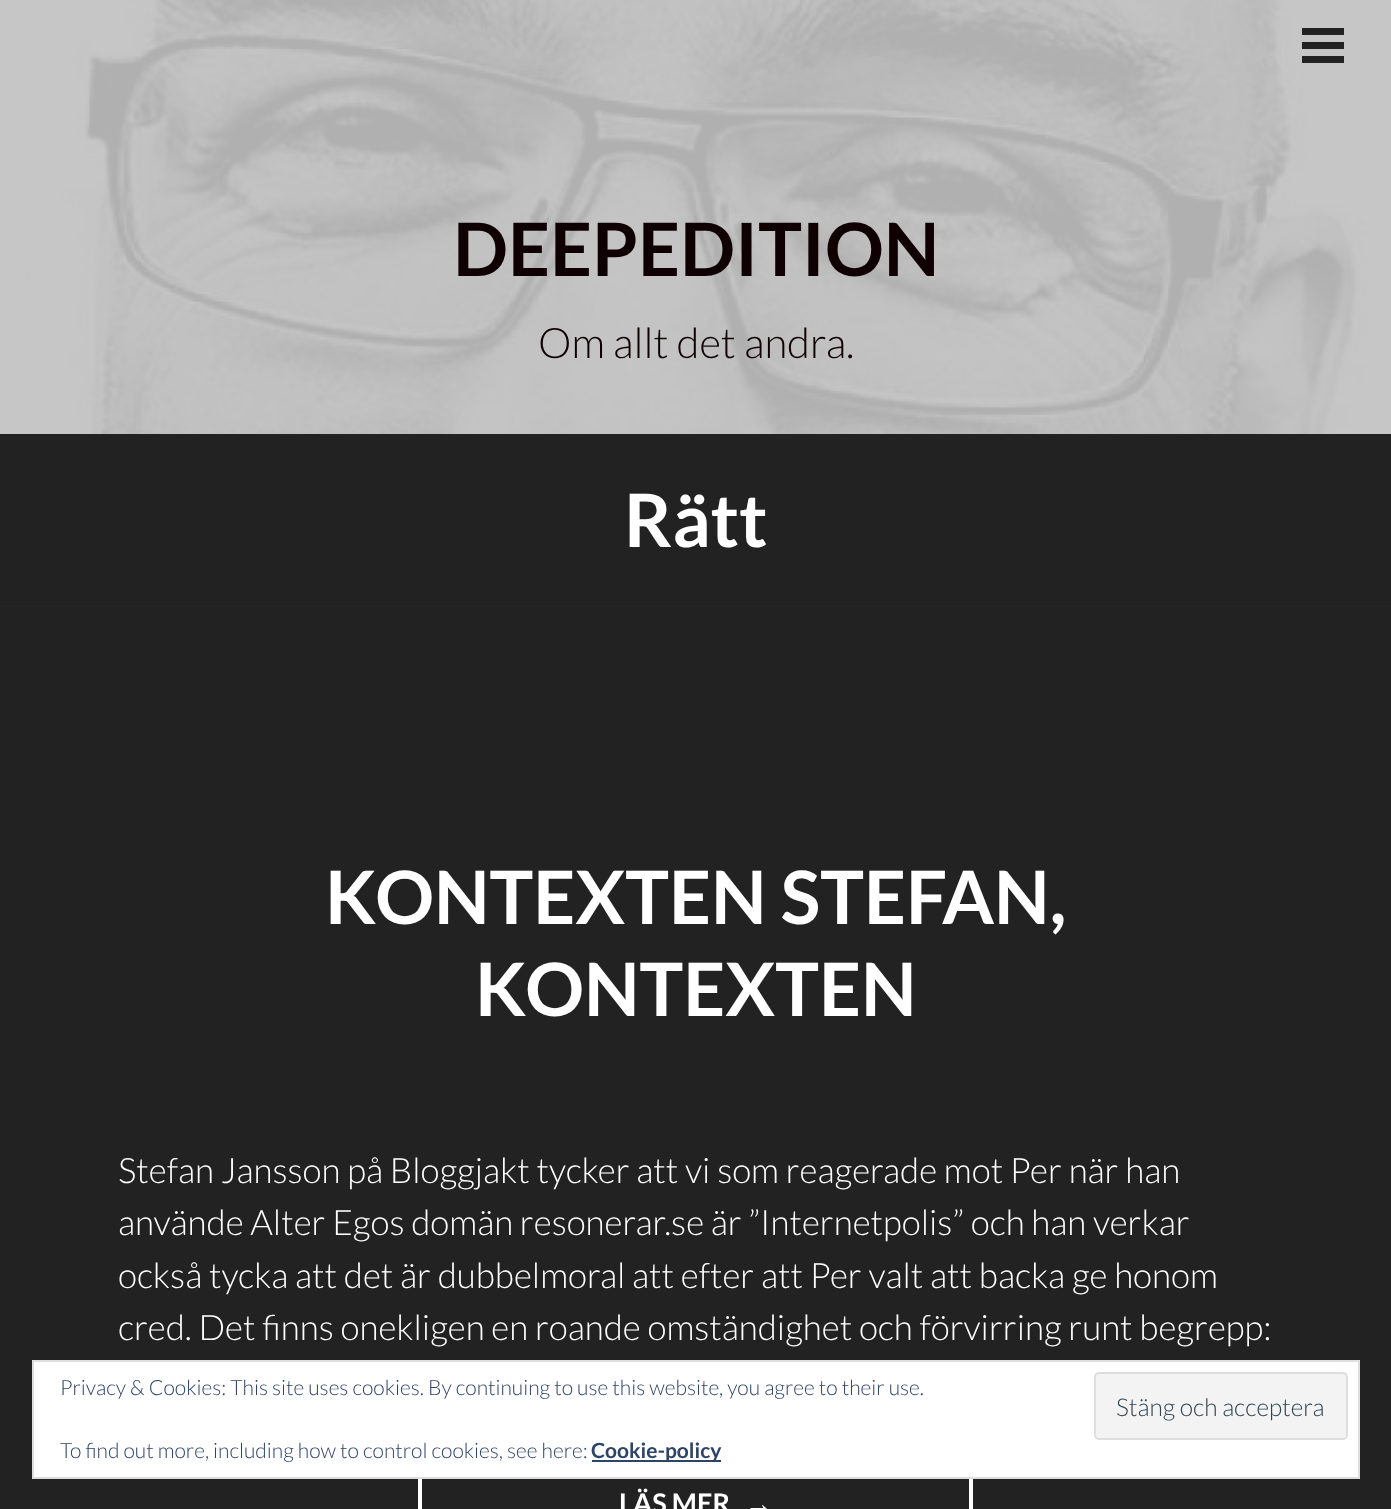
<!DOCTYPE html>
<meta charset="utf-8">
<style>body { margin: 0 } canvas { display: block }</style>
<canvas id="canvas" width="1391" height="1509"></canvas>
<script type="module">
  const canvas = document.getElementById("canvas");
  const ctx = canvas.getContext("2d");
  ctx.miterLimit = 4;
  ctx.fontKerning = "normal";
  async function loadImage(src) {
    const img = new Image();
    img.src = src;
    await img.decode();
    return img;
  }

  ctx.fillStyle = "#fcfcfc";
  ctx.fillRect(0, 0, 1391, 1509);
  ctx.drawImage(await loadImage("img1.png"), 0, 0, 1391, 434);
  ctx.fillStyle = "#222222";
  ctx.fillRect(1302, 42, 42, 7);
  ctx.fillRect(1302, 28, 42, 7);
  ctx.fillRect(1302, 56, 42, 7);
  ctx.font = "bold 73.5px Lato";
  ctx.fillStyle = "#0f0003";
  ctx.fillText("DEEPEDITION", 453, 276);
  ctx.font = "300 42px Lato";
  ctx.fillText("Om allt det andra.", 538, 358);
  ctx.fillStyle = "#222222";
  ctx.fillRect(0, 434, 1391, 172);
  ctx.fillStyle = "#252525";
  ctx.fillRect(0, 606, 1391, 1);
  ctx.font = "bold 73.5px Lato";
  ctx.fillStyle = "#ffffff";
  ctx.fillText("Rätt", 624, 547);
  ctx.fillStyle = "#222222";
  ctx.fillRect(0, 607, 1391, 902);
  ctx.fillStyle = "#ffffff";
  ctx.fillText("KONTEXTEN STEFAN,", 325, 924);
  ctx.fillText("KONTEXTEN", 475, 1016);
  ctx.font = "300 35px Lato";
  ctx.fillText("Stefan Jansson på Bloggjakt tycker att vi som reagerade mot Per när han", 118, 1183);
  ctx.fillText("använde Alter Egos domän resonerar.se är ”Internetpolis” och han verkar", 118, 1235);
  ctx.fillText("också tycka att det är dubbelmoral att efter att Per valt att backa ge honom", 118, 1288);
  ctx.fillText("cred. Det finns onekligen en roande omständighet och förvirring runt begrepp:", 118, 1340);
  ctx.strokeStyle = "#ffffff";
  ctx.lineWidth = 4;
  ctx.strokeRect(420, 1462, 551, 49);
  ctx.font = "bold 27px Lato";
  ctx.fillText("LÄS MER", 619, 1513);
  ctx.font = "bold 27px Liberation Sans";
  ctx.fillText("→", 745, 1513);
  ctx.beginPath();
  ctx.rect(33, 1361, 1326, 117);
  ctx.fill();
  ctx.strokeStyle = "#dedede";
  ctx.lineWidth = 2;
  ctx.stroke();
  ctx.font = "300 21px Lato";
  ctx.fillStyle = "#2e4467";
  ctx.fillText("Privacy & Cookies: This site uses cookies. By continuing to use this website, you agree to their use.", 60, 1395);
  ctx.fillStyle = "#f3f3f3";
  ctx.beginPath();
  ctx.roundRect(1095, 1373, 252, 66, 4);
  ctx.fill();
  ctx.stroke();
  ctx.font = "300 24.5px Lato";
  ctx.fillStyle = "#2e4453";
  ctx.fillText("Stäng och acceptera", 1116, 1416);
  ctx.font = "300 21px Lato";
  ctx.fillStyle = "#2e4467";
  ctx.fillText("To find out more, including how to control cookies, see here:", 60, 1458);
  ctx.fillRect(592, 1460, 129, 2);
  ctx.font = "bold 21px Lato";
  ctx.fillText("Cookie-policy", 591, 1458);
</script>
